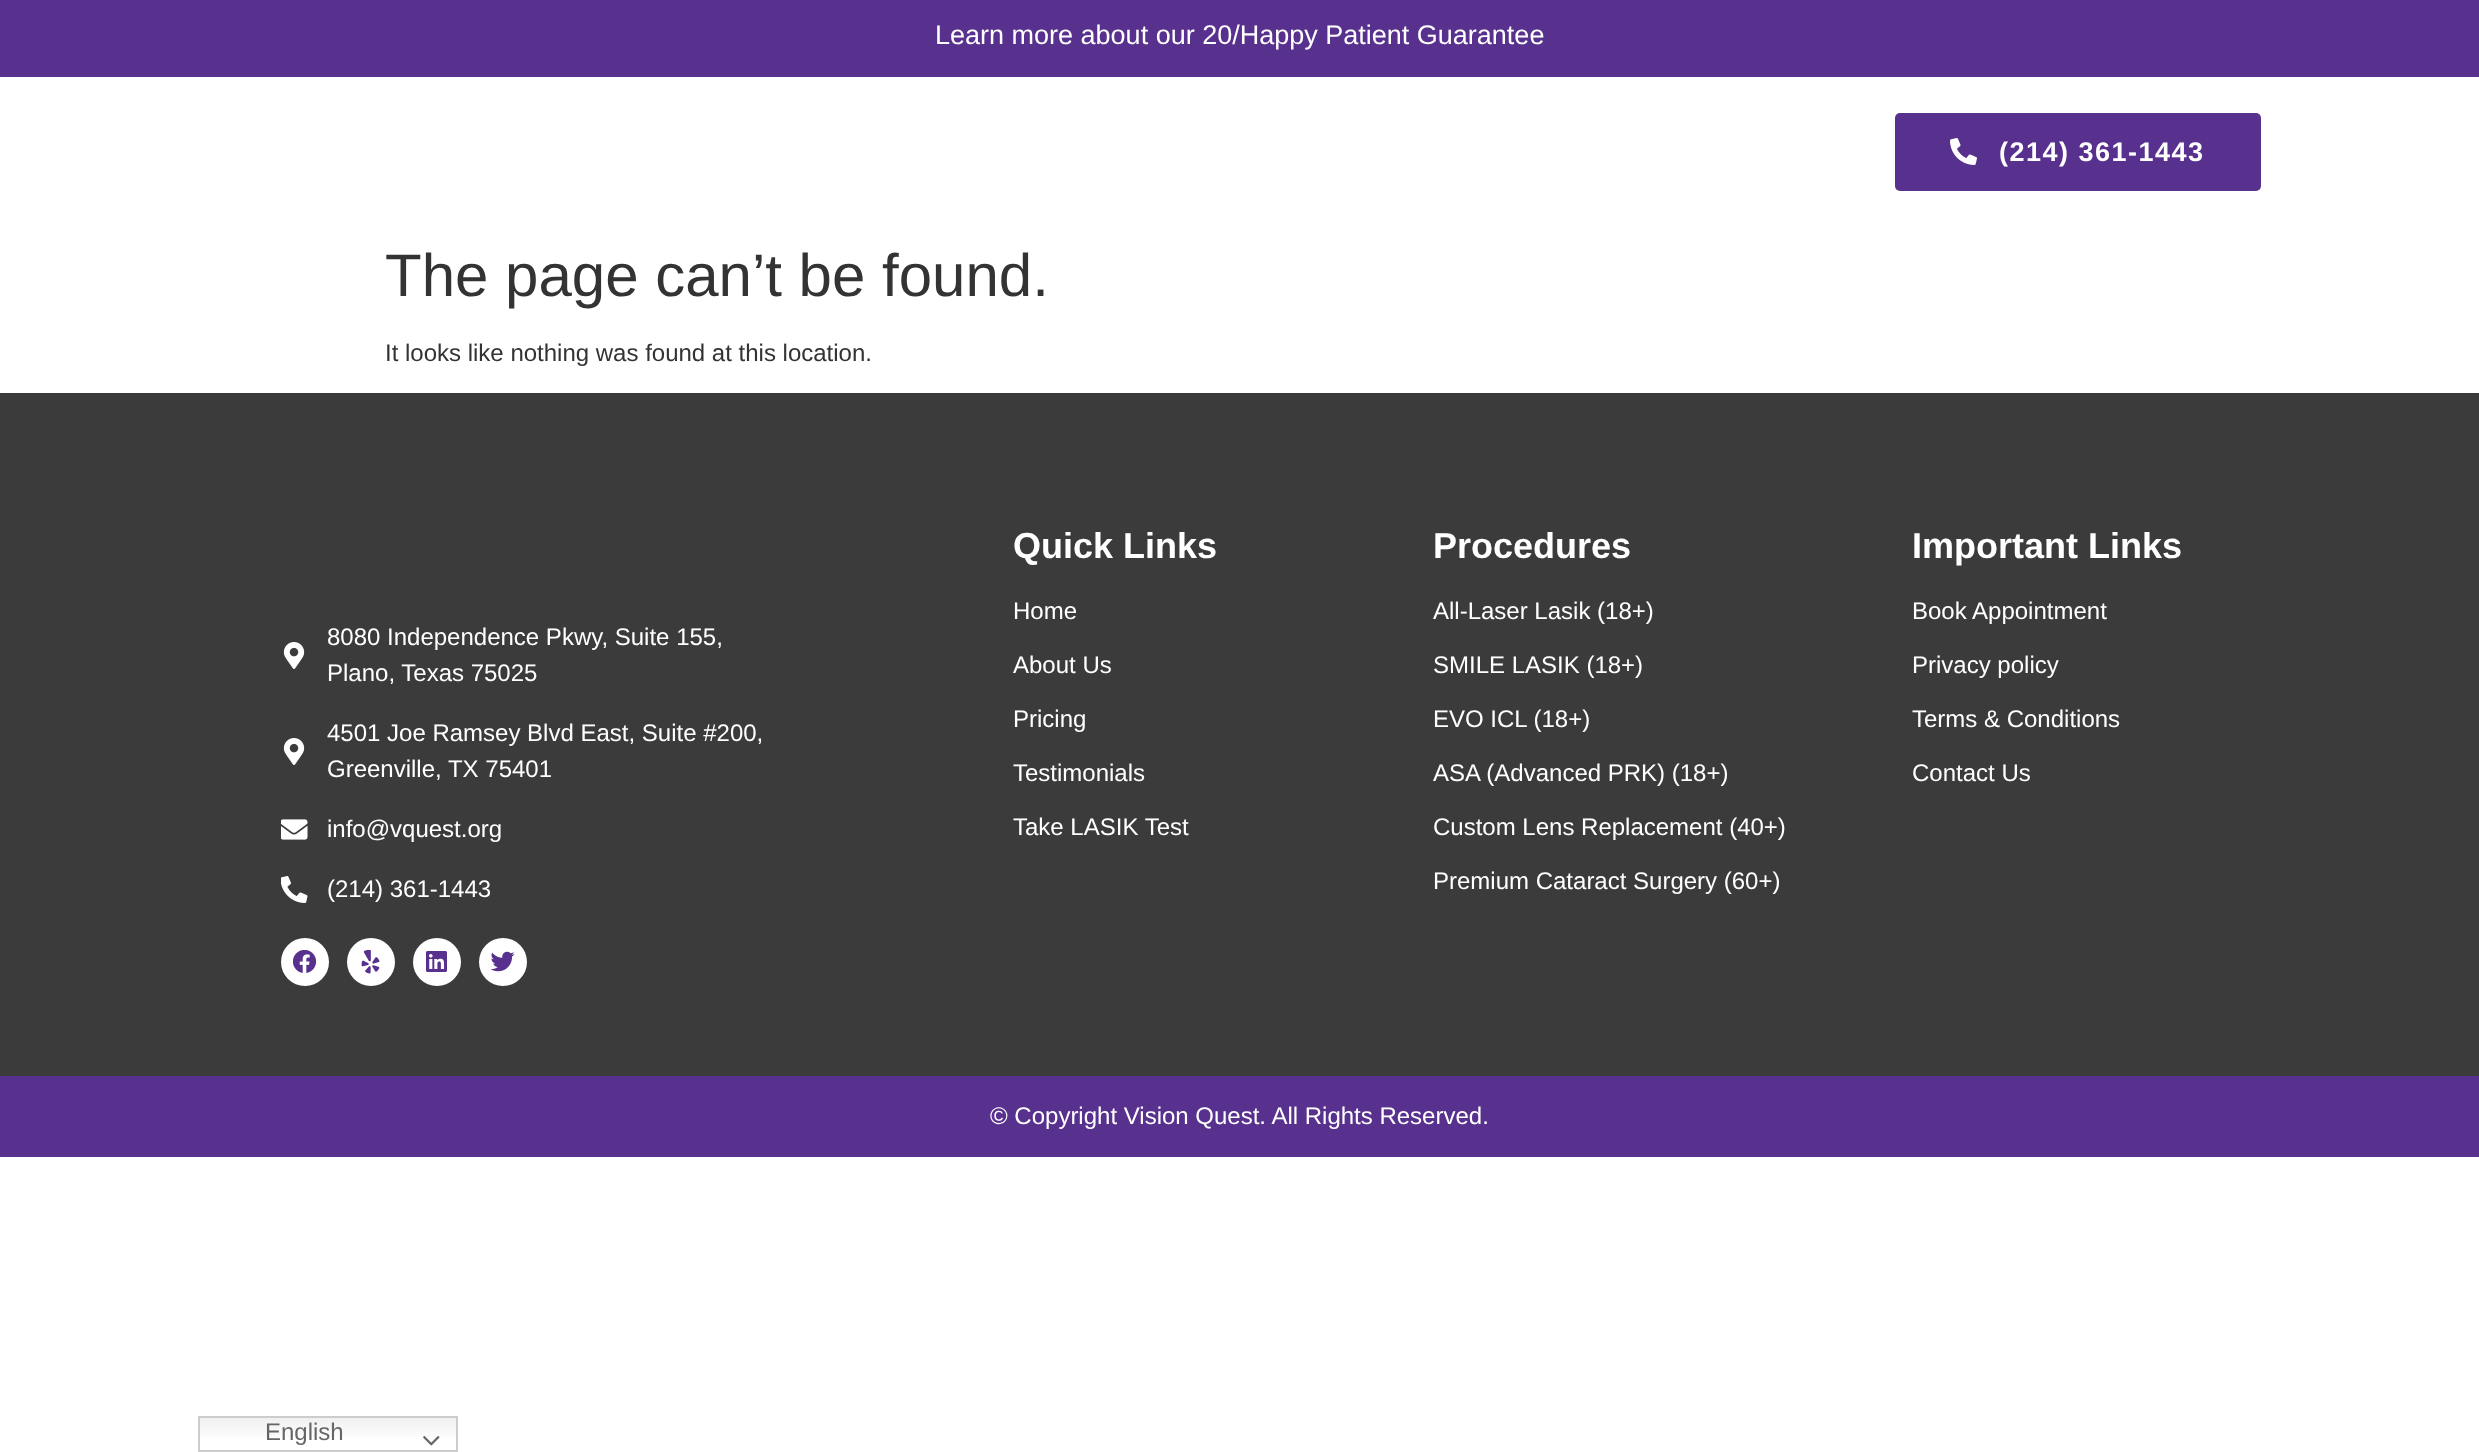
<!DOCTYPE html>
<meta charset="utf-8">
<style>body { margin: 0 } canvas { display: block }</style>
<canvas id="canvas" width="2479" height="1452"></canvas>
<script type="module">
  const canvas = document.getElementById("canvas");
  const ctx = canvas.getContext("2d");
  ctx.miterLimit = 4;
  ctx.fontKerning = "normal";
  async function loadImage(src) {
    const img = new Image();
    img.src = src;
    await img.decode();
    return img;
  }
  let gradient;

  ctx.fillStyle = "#ffffff";
  ctx.fillRect(0, 0, 2479, 1452);
  ctx.fillStyle = "#58308d";
  ctx.fillRect(0, 0, 2479, 77);
  ctx.font = "27px Liberation Sans";
  ctx.fillStyle = "#ffffff";
  ctx.fillText("Learn more about our 20/Happy Patient Guarantee", 935, 44);
  ctx.fillStyle = "#58308d";
  ctx.beginPath();
  ctx.roundRect(1895, 113, 366, 78, 5);
  ctx.fill();
  ctx.drawImage(await loadImage("img1.png"), 1950, 138, 27, 27);
  ctx.letterSpacing = "1.5px";
  ctx.font = "bold 27px Liberation Sans";
  ctx.fillStyle = "#ffffff";
  ctx.fillText("(214) 361-1443", 1999, 161);
  ctx.letterSpacing = "0px";
  ctx.font = "60px Liberation Sans";
  ctx.fillStyle = "#333333";
  ctx.fillText("The page can’t be found.", 385, 296);
  ctx.font = "24px Liberation Sans";
  ctx.fillText("It looks like nothing was found at this location.", 385, 361);
  ctx.fillStyle = "#3b3b3b";
  ctx.fillRect(0, 393, 2479, 683);
  ctx.drawImage(await loadImage("img2.png"), 283, 642, 22, 27);
  ctx.fillStyle = "#ffffff";
  ctx.fillText("8080 Independence Pkwy, Suite 155,", 327, 645);
  ctx.fillText("Plano, Texas 75025", 327, 681);
  ctx.drawImage(await loadImage("img2.png"), 283, 738, 22, 27);
  ctx.fillText("4501 Joe Ramsey Blvd East, Suite #200,", 327, 741);
  ctx.fillText("Greenville, TX 75401", 327, 777);
  ctx.drawImage(await loadImage("img3.png"), 281, 819, 27, 21);
  ctx.fillText("info@vquest.org", 327, 837);
  ctx.drawImage(await loadImage("img4.png"), 281, 876, 27, 27);
  ctx.fillText("(214) 361-1443", 327, 897);
  ctx.beginPath();
  ctx.arc(305, 962, 24, 0, Math.PI * 2);
  ctx.fill();
  ctx.drawImage(await loadImage("img5.png"), 293, 950, 24, 23);
  ctx.beginPath();
  ctx.arc(371, 962, 24, 0, Math.PI * 2);
  ctx.fill();
  ctx.drawImage(await loadImage("img6.png"), 361, 950, 19, 24);
  ctx.beginPath();
  ctx.arc(437, 962, 24, 0, Math.PI * 2);
  ctx.fill();
  ctx.drawImage(await loadImage("img7.png"), 426, 951, 21, 21);
  ctx.beginPath();
  ctx.arc(503, 962, 24, 0, Math.PI * 2);
  ctx.fill();
  ctx.drawImage(await loadImage("img8.png"), 491, 951, 24, 21);
  ctx.font = "bold 36px Liberation Sans";
  ctx.fillText("Quick Links", 1013, 558);
  ctx.font = "24px Liberation Sans";
  ctx.fillText("Home", 1013, 619);
  ctx.fillText("About Us", 1013, 673);
  ctx.fillText("Pricing", 1013, 727);
  ctx.fillText("Testimonials", 1013, 781);
  ctx.fillText("Take LASIK Test", 1013, 835);
  ctx.font = "bold 36px Liberation Sans";
  ctx.fillText("Procedures", 1433, 558);
  ctx.font = "24px Liberation Sans";
  ctx.fillText("All-Laser Lasik (18+)", 1433, 619);
  ctx.fillText("SMILE LASIK (18+)", 1433, 673);
  ctx.fillText("EVO ICL (18+)", 1433, 727);
  ctx.fillText("ASA (Advanced PRK) (18+)", 1433, 781);
  ctx.fillText("Custom Lens Replacement (40+)", 1433, 835);
  ctx.fillText("Premium Cataract Surgery (60+)", 1433, 889);
  ctx.font = "bold 36px Liberation Sans";
  ctx.fillText("Important Links", 1912, 558);
  ctx.font = "24px Liberation Sans";
  ctx.fillText("Book Appointment", 1912, 619);
  ctx.fillText("Privacy policy", 1912, 673);
  ctx.fillText("Terms & Conditions", 1912, 727);
  ctx.fillText("Contact Us", 1912, 781);
  ctx.fillStyle = "#58308d";
  ctx.fillRect(0, 1076, 2479, 81);
  ctx.fillStyle = "#ffffff";
  ctx.fillText("© Copyright Vision Quest. All Rights Reserved.", 990, 1124);
  gradient = ctx.createLinearGradient(328, 1416, 328, 1452);
  gradient.addColorStop(0, "#efefef");
  gradient.addColorStop(0.7, "#ffffff");
  ctx.fillStyle = gradient;
  ctx.fillRect(200, 1418, 256, 19);
  ctx.strokeStyle = "#cccccc";
  ctx.lineWidth = 2;
  ctx.strokeRect(199, 1417, 258, 34);
  ctx.fillStyle = "#666666";
  ctx.fillText("English", 265, 1440);
  ctx.drawImage(await loadImage("img9.png"), 423, 1436, 17, 10);
</script>
